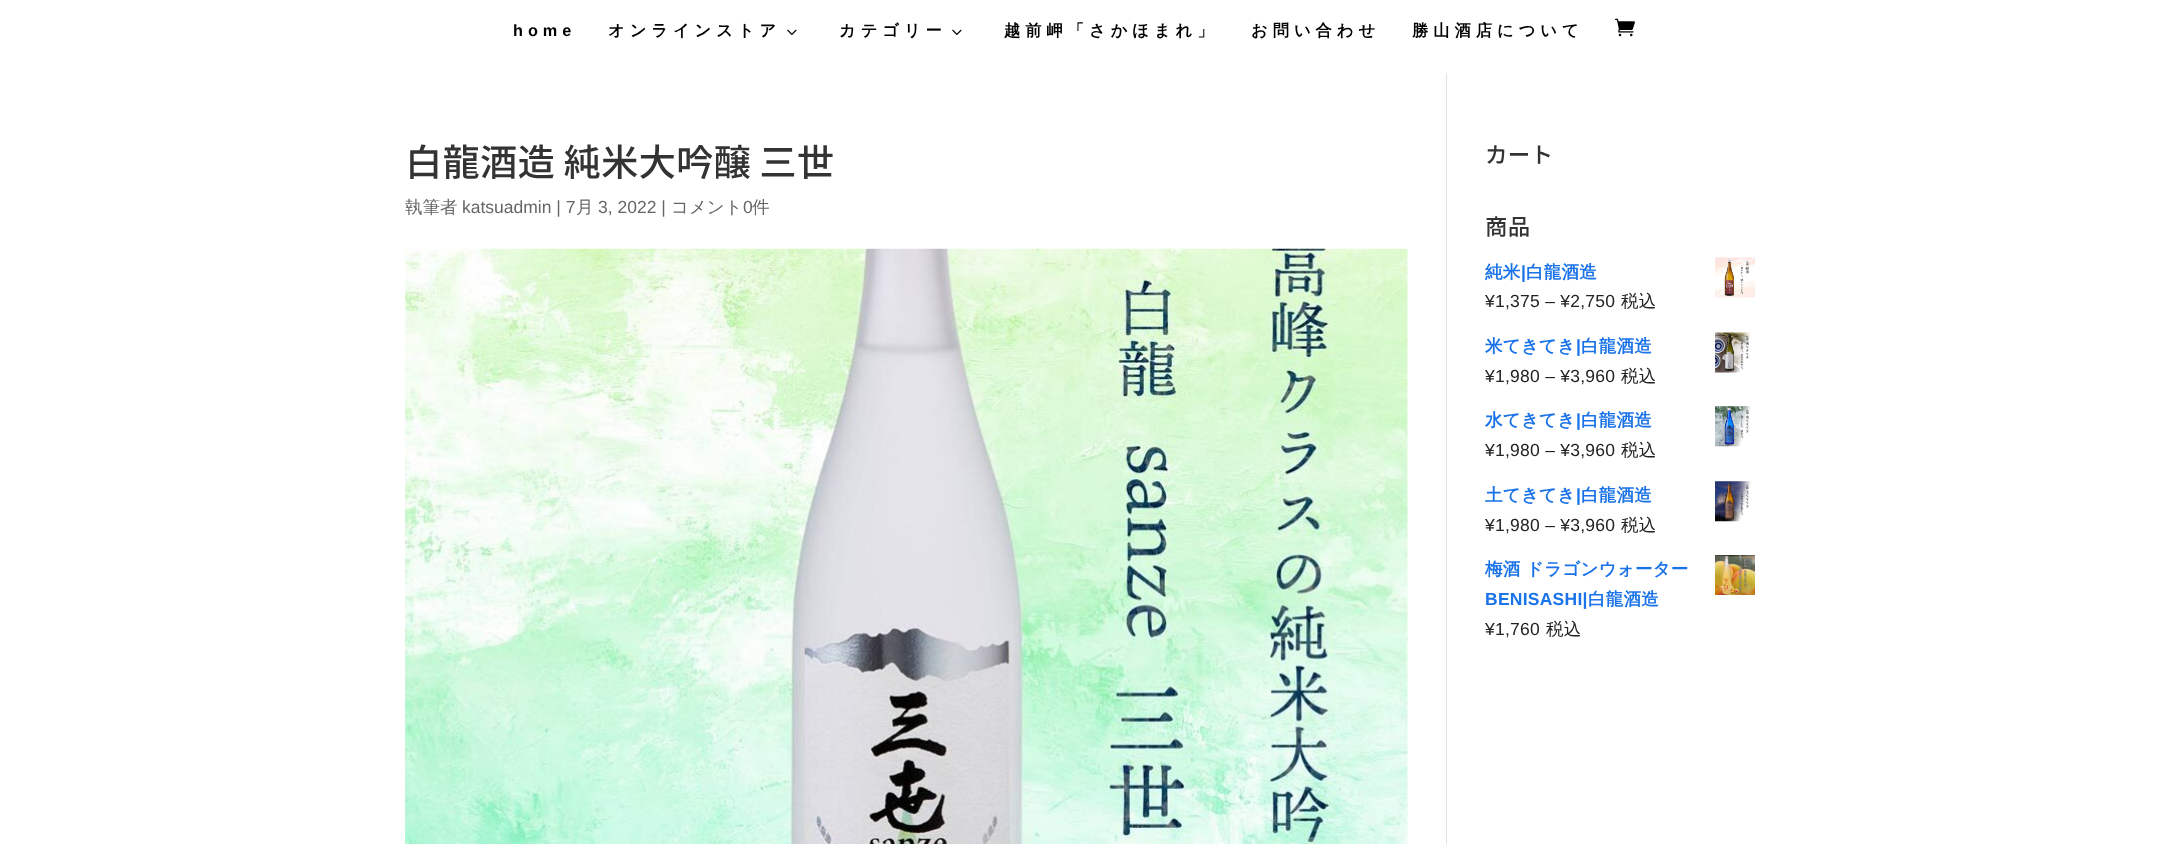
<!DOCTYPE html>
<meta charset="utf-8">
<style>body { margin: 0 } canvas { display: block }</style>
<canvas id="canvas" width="2160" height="844"></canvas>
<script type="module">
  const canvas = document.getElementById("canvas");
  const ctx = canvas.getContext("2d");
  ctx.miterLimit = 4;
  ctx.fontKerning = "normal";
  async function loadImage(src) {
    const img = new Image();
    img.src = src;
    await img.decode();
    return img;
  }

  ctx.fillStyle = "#ffffff";
  ctx.fillRect(0, 0, 2160, 844);
  ctx.letterSpacing = "5px";
  ctx.font = "bold 16.25px Liberation Sans";
  ctx.fillStyle = "#000000";
  ctx.fillText("home", 513, 36);
  ctx.font = "bold 16.25px WenQuanYi Zen Hei";
  ctx.fillText("オンラインストア", 608, 36);
  ctx.drawImage(await loadImage("img1.png"), 787, 29, 10, 6);
  ctx.fillText("カテゴリー", 839, 36);
  ctx.drawImage(await loadImage("img1.png"), 952, 29, 10, 6);
  ctx.fillText("越前岬「さかほまれ」", 1004, 36);
  ctx.fillText("お問い合わせ", 1251, 36);
  ctx.fillText("勝山酒店について", 1412, 36);
  ctx.drawImage(await loadImage("img2.png"), 1615, 18, 20, 19);
  ctx.fillStyle = "#e2e2e2";
  ctx.fillRect(1446, 73, 1, 771);
  ctx.letterSpacing = "0px";
  ctx.font = "500 37.5px Noto Sans JP";
  ctx.fillStyle = "#333333";
  ctx.fillText("白龍酒造 純米大吟醸 三世", 405, 176);
  ctx.font = "500 17.5px WenQuanYi Zen Hei";
  ctx.fillStyle = "#666666";
  ctx.fillText("執筆者", 405, 213);
  ctx.font = "17.5px Liberation Sans";
  ctx.fillText("katsuadmin | 7", 462, 213);
  ctx.font = "500 17.5px WenQuanYi Zen Hei";
  ctx.fillText("月", 576, 213);
  ctx.font = "17.5px Liberation Sans";
  ctx.fillText("3, 2022 |", 598, 213);
  ctx.font = "500 17.5px WenQuanYi Zen Hei";
  ctx.fillText("コメント", 671, 213);
  ctx.font = "17.5px Liberation Sans";
  ctx.fillText("0", 743, 213);
  ctx.font = "500 17.5px WenQuanYi Zen Hei";
  ctx.fillText("件", 752, 213);
  ctx.drawImage(await loadImage("img3.png"), 405, 248, 1003, 596);
  ctx.letterSpacing = "0.25px";
  ctx.font = "500 22.5px Noto Sans JP";
  ctx.fillStyle = "#333333";
  ctx.fillText("カート", 1485, 163);
  ctx.fillText("商品", 1485, 235);
  ctx.font = "bold 17.5px WenQuanYi Zen Hei";
  ctx.fillStyle = "#1a73e8";
  ctx.fillText("純米", 1485, 278);
  ctx.font = "bold 17.5px Liberation Sans";
  ctx.fillText("|", 1521, 278);
  ctx.font = "bold 17.5px WenQuanYi Zen Hei";
  ctx.fillText("白龍酒造", 1526, 278);
  ctx.drawImage(await loadImage("img4.png"), 1715, 257, 40, 41);
  ctx.font = "17.5px Liberation Sans";
  ctx.fillStyle = "#222222";
  ctx.fillText("¥1,375 – ¥2,750", 1485, 307);
  ctx.font = "500 17.5px WenQuanYi Zen Hei";
  ctx.fillText("税込", 1621, 307);
  ctx.font = "bold 17.5px WenQuanYi Zen Hei";
  ctx.fillStyle = "#1a73e8";
  ctx.fillText("米てきてき", 1485, 352);
  ctx.font = "bold 17.5px Liberation Sans";
  ctx.fillText("|", 1576, 352);
  ctx.font = "bold 17.5px WenQuanYi Zen Hei";
  ctx.fillText("白龍酒造", 1581, 352);
  ctx.drawImage(await loadImage("img5.png"), 1715, 332, 36, 41);
  ctx.font = "17.5px Liberation Sans";
  ctx.fillStyle = "#222222";
  ctx.fillText("¥1,980 – ¥3,960", 1485, 382);
  ctx.font = "500 17.5px WenQuanYi Zen Hei";
  ctx.fillText("税込", 1621, 382);
  ctx.font = "bold 17.5px WenQuanYi Zen Hei";
  ctx.fillStyle = "#1a73e8";
  ctx.fillText("水てきてき", 1485, 426);
  ctx.font = "bold 17.5px Liberation Sans";
  ctx.fillText("|", 1576, 426);
  ctx.font = "bold 17.5px WenQuanYi Zen Hei";
  ctx.fillText("白龍酒造", 1581, 426);
  ctx.drawImage(await loadImage("img6.png"), 1715, 406, 36, 41);
  ctx.font = "17.5px Liberation Sans";
  ctx.fillStyle = "#222222";
  ctx.fillText("¥1,980 – ¥3,960", 1485, 456);
  ctx.font = "500 17.5px WenQuanYi Zen Hei";
  ctx.fillText("税込", 1621, 456);
  ctx.font = "bold 17.5px WenQuanYi Zen Hei";
  ctx.fillStyle = "#1a73e8";
  ctx.fillText("土てきてき", 1485, 501);
  ctx.font = "bold 17.5px Liberation Sans";
  ctx.fillText("|", 1576, 501);
  ctx.font = "bold 17.5px WenQuanYi Zen Hei";
  ctx.fillText("白龍酒造", 1581, 501);
  ctx.drawImage(await loadImage("img7.png"), 1715, 481, 36, 41);
  ctx.font = "17.5px Liberation Sans";
  ctx.fillStyle = "#222222";
  ctx.fillText("¥1,980 – ¥3,960", 1485, 531);
  ctx.font = "500 17.5px WenQuanYi Zen Hei";
  ctx.fillText("税込", 1621, 531);
  ctx.font = "bold 17.5px WenQuanYi Zen Hei";
  ctx.fillStyle = "#1a73e8";
  ctx.fillText("梅酒 ドラゴンウォーター", 1485, 575);
  ctx.drawImage(await loadImage("img8.png"), 1715, 555, 40, 40);
  ctx.font = "bold 17.5px Liberation Sans";
  ctx.fillText("BENISASHI|", 1485, 605);
  ctx.font = "bold 17.5px WenQuanYi Zen Hei";
  ctx.fillText("白龍酒造", 1588, 605);
  ctx.font = "17.5px Liberation Sans";
  ctx.fillStyle = "#222222";
  ctx.fillText("¥1,760", 1485, 635);
  ctx.font = "500 17.5px WenQuanYi Zen Hei";
  ctx.fillText("税込", 1546, 635);
</script>
